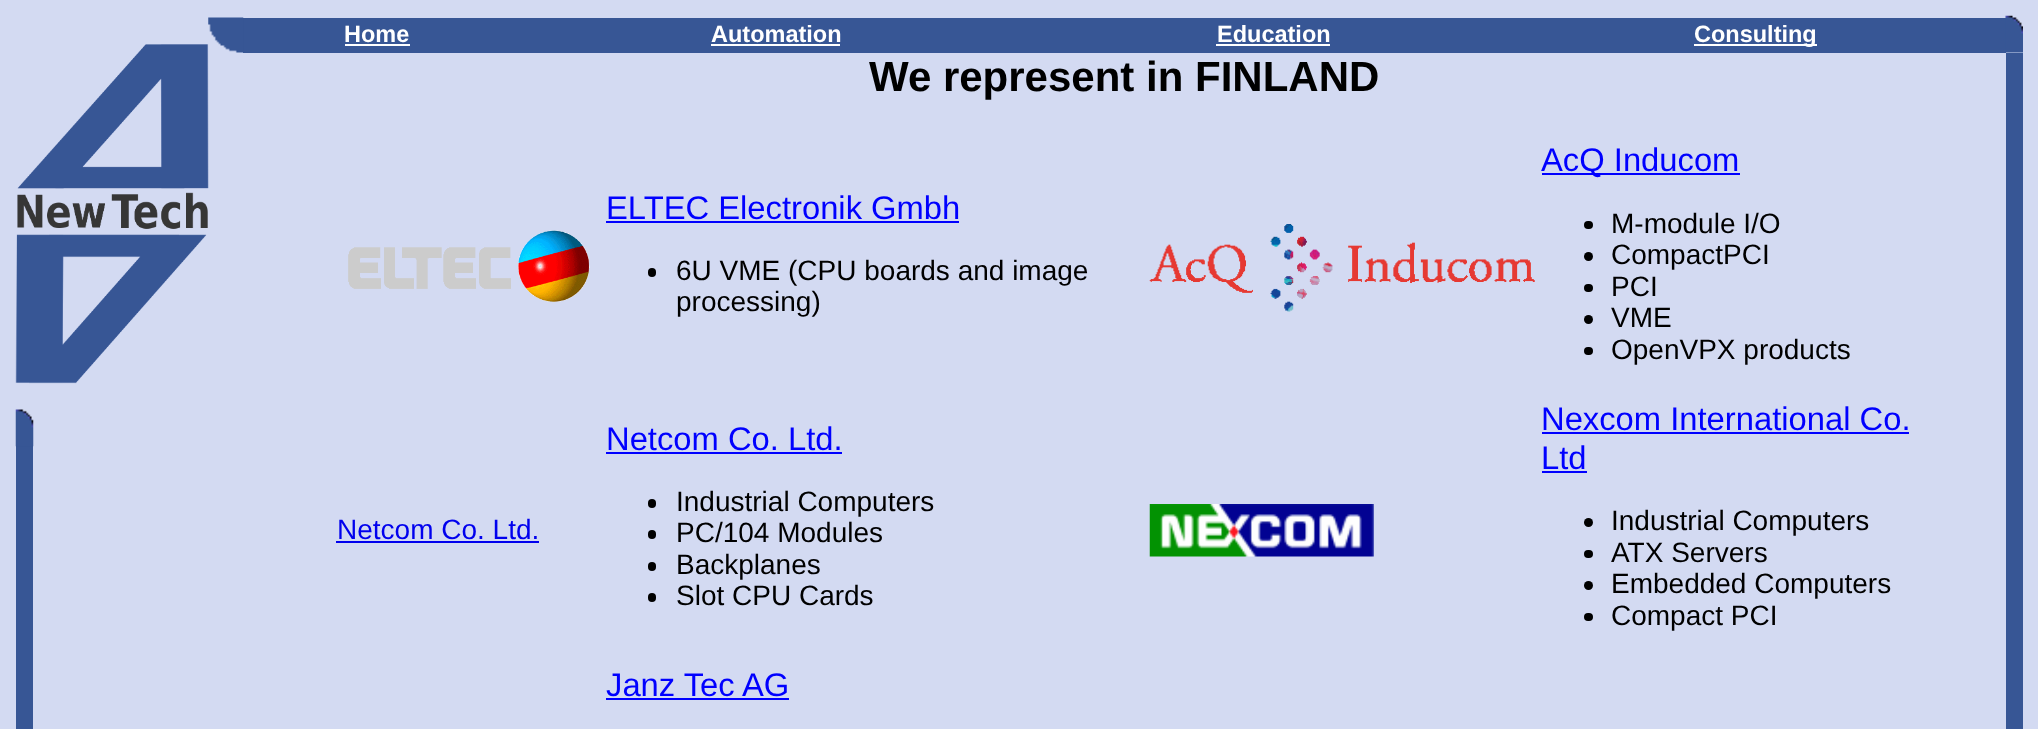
<!DOCTYPE html>
<meta charset="utf-8">
<style>body { margin: 0 } canvas { display: block }</style>
<canvas id="canvas" width="2038" height="729"></canvas>
<script type="module">
  const canvas = document.getElementById("canvas");
  const ctx = canvas.getContext("2d");
  ctx.miterLimit = 4;
  ctx.fontKerning = "normal";
  async function loadImage(src) {
    const img = new Image();
    img.src = src;
    await img.decode();
    return img;
  }

  ctx.fillStyle = "#d3daf2";
  ctx.fillRect(0, 0, 2038, 729);
  ctx.fillStyle = "#375695";
  ctx.fillRect(243, 18, 1763, 35);
  ctx.drawImage(await loadImage("img3.png"), 15, 44, 194, 340);
  ctx.drawImage(await loadImage("img1.png"), 208, 17, 36, 36);
  ctx.font = "bold 23.5px Liberation Sans";
  ctx.fillStyle = "#ffffff";
  ctx.fillText("Home", 344, 42);
  ctx.fillRect(345, 44, 65, 2);
  ctx.fillText("Automation", 711, 42);
  ctx.fillRect(711, 44, 129, 2);
  ctx.fillText("Education", 1217, 42);
  ctx.fillRect(1216, 44, 114, 2);
  ctx.fillRect(1694, 44, 123, 2);
  ctx.fillText("Consulting", 1694, 42);
  ctx.drawImage(await loadImage("img2.png"), 2005, 15, 18, 38);
  ctx.fillStyle = "#375695";
  ctx.fillRect(16, 446, 17, 283);
  ctx.drawImage(await loadImage("img4.png"), 15, 409, 19, 38);
  ctx.font = "bold 42px Liberation Sans";
  ctx.fillStyle = "#000000";
  ctx.fillText("We represent in FINLAND", 869, 91);
  ctx.drawImage(await loadImage("img5.png"), 348, 230, 242, 72);
  ctx.font = "32.75px Liberation Sans";
  ctx.fillStyle = "#0000ff";
  ctx.fillText("ELTEC Electronik Gmbh", 606, 219);
  ctx.fillRect(606, 221, 353, 2);
  ctx.fillStyle = "#000000";
  ctx.beginPath();
  ctx.roundRect(648, 268, 8, 9, 4);
  ctx.fill();
  ctx.font = "28px Liberation Sans";
  ctx.fillText("6U VME (CPU boards and image", 676, 280);
  ctx.fillText("processing)", 676, 311);
  ctx.drawImage(await loadImage("img6.png"), 1149, 224, 386, 88);
  ctx.fillStyle = "#0000ff";
  ctx.fillRect(1542, 173, 198, 2);
  ctx.font = "32.75px Liberation Sans";
  ctx.fillText("AcQ Inducom", 1541, 171);
  ctx.fillStyle = "#000000";
  ctx.beginPath();
  ctx.roundRect(1584, 221, 9, 8, 4);
  ctx.fill();
  ctx.font = "28px Liberation Sans";
  ctx.fillText("M-module I/O", 1611, 233);
  ctx.beginPath();
  ctx.arc(1588.5, 256.5, 4.5, 0, Math.PI * 2);
  ctx.fill();
  ctx.fillText("CompactPCI", 1611, 264);
  ctx.beginPath();
  ctx.roundRect(1584, 284, 9, 8, 4);
  ctx.fill();
  ctx.fillText("PCI", 1611, 296);
  ctx.beginPath();
  ctx.arc(1588.5, 319.5, 4.5, 0, Math.PI * 2);
  ctx.fill();
  ctx.fillText("VME", 1611, 327);
  ctx.beginPath();
  ctx.roundRect(1584, 347, 9, 8, 4);
  ctx.fill();
  ctx.fillText("OpenVPX products", 1611, 359);
  ctx.fillStyle = "#0000ee";
  ctx.fillText("Netcom Co. Ltd.", 337, 539);
  ctx.fillRect(336, 541, 203, 2);
  ctx.font = "32.75px Liberation Sans";
  ctx.fillStyle = "#0000ff";
  ctx.fillText("Netcom Co. Ltd.", 606, 450);
  ctx.fillRect(606, 452, 236, 2);
  ctx.fillStyle = "#000000";
  ctx.beginPath();
  ctx.roundRect(648, 499, 8, 9, 4);
  ctx.fill();
  ctx.font = "28px Liberation Sans";
  ctx.fillText("Industrial Computers", 676, 511);
  ctx.beginPath();
  ctx.roundRect(648, 530, 8, 9, 4);
  ctx.fill();
  ctx.fillText("PC/104 Modules", 676, 542);
  ctx.beginPath();
  ctx.roundRect(648, 562, 8, 9, 4);
  ctx.fill();
  ctx.fillText("Backplanes", 676, 574);
  ctx.beginPath();
  ctx.roundRect(648, 593, 8, 9, 4);
  ctx.fill();
  ctx.fillText("Slot CPU Cards", 676, 605);
  ctx.drawImage(await loadImage("img7.png"), 1149, 504, 225, 53);
  ctx.font = "32.75px Liberation Sans";
  ctx.fillStyle = "#0000ff";
  ctx.fillText("Nexcom International Co.", 1541, 430);
  ctx.fillRect(1542, 432, 367, 2);
  ctx.fillText("Ltd", 1541, 469);
  ctx.fillRect(1542, 471, 45, 2);
  ctx.fillStyle = "#000000";
  ctx.beginPath();
  ctx.arc(1588.5, 522.5, 4.5, 0, Math.PI * 2);
  ctx.fill();
  ctx.font = "28px Liberation Sans";
  ctx.fillText("Industrial Computers", 1611, 530);
  ctx.beginPath();
  ctx.roundRect(1584, 550, 9, 8, 4);
  ctx.fill();
  ctx.fillText("ATX Servers", 1611, 562);
  ctx.beginPath();
  ctx.arc(1588.5, 585.5, 4.5, 0, Math.PI * 2);
  ctx.fill();
  ctx.fillText("Embedded Computers", 1611, 593);
  ctx.beginPath();
  ctx.roundRect(1584, 613, 9, 8, 4);
  ctx.fill();
  ctx.fillText("Compact PCI", 1611, 625);
  ctx.font = "32.75px Liberation Sans";
  ctx.fillStyle = "#0000ff";
  ctx.fillText("Janz Tec AG", 606, 696);
  ctx.fillRect(606, 698, 183, 2);
  ctx.fillStyle = "#375695";
  ctx.fillRect(2006, 53, 17, 676);
</script>
